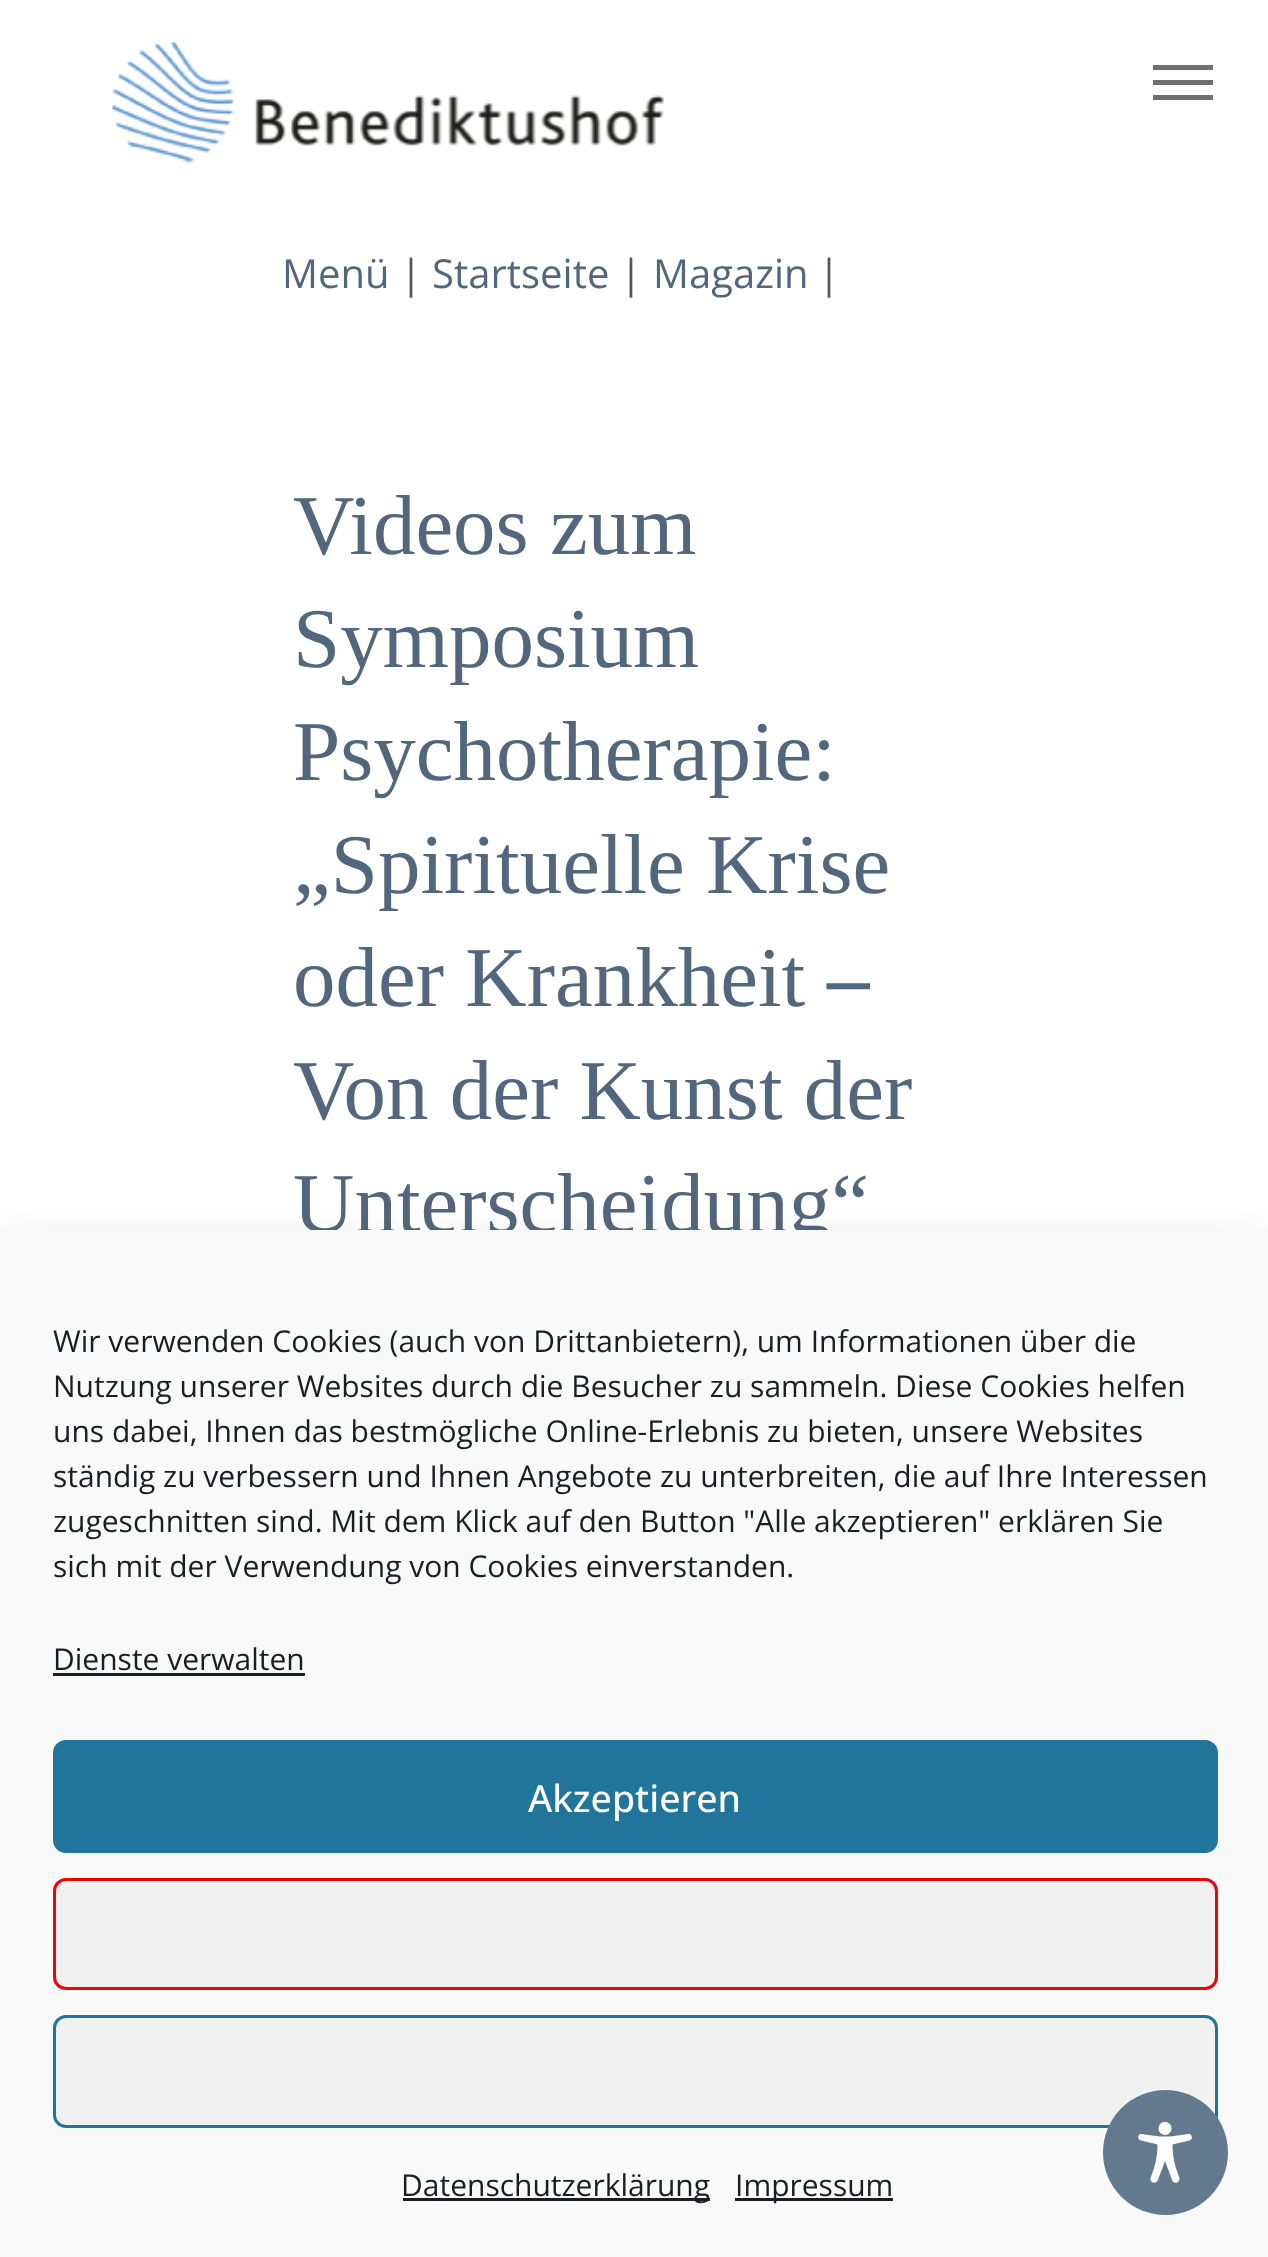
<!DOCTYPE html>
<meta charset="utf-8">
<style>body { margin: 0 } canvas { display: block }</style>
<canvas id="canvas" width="1268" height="2257"></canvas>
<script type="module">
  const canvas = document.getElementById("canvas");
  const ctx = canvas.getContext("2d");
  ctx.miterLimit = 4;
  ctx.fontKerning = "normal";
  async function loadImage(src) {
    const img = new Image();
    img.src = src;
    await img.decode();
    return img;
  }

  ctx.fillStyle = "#ffffff";
  ctx.fillRect(0, 0, 1268, 2257);
  ctx.drawImage(await loadImage("img1.png"), 112, 42, 552, 121);
  ctx.fillStyle = "#707070";
  ctx.fillRect(1153, 65, 60, 5);
  ctx.fillRect(1153, 80, 60, 5);
  ctx.fillRect(1153, 95, 60, 5);
  ctx.font = "40px Open Sans";
  ctx.fillStyle = "#52677d";
  ctx.fillText("Menü", 282, 288);
  ctx.fillStyle = "#565656";
  ctx.fillText("|", 400, 288);
  ctx.fillStyle = "#52677d";
  ctx.fillText("Startseite", 432, 288);
  ctx.fillStyle = "#565656";
  ctx.fillText("|", 620, 288);
  ctx.fillStyle = "#52677d";
  ctx.fillText("Magazin", 653, 288);
  ctx.fillStyle = "#565656";
  ctx.fillText("|", 818, 288);
  ctx.font = "85px Liberation Serif";
  ctx.fillStyle = "#52677d";
  ctx.fillText("Videos zum", 293, 554);
  ctx.fillText("Symposium", 293, 667);
  ctx.fillText("Psychotherapie:", 293, 780);
  ctx.fillText("„Spirituelle Krise", 293, 893);
  ctx.fillText("oder Krankheit", 293, 1006);
  ctx.font = "bold 85px Liberation Serif";
  ctx.fillText("–", 827, 1006);
  ctx.font = "85px Liberation Serif";
  ctx.fillText("Von der Kunst der", 293, 1119);
  ctx.fillText("Unterscheidung“", 293, 1232);
  ctx.fillStyle = "rgba(0, 0, 0, 0.19)";
  ctx.filter = "blur(25px)";
  ctx.beginPath();
  ctx.rect(0, 1255, 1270, 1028);
  ctx.fill();
  ctx.filter = "none";
  ctx.fillStyle = "#f9f9f9";
  ctx.fillRect(0, 1230, 1268, 1027);
  ctx.font = "30px Open Sans";
  ctx.fillStyle = "#191e23";
  ctx.fillText("Wir verwenden Cookies (auch von Drittanbietern), um Informationen über die", 53, 1352);
  ctx.fillText("Nutzung unserer Websites durch die Besucher zu sammeln. Diese Cookies helfen", 53, 1397);
  ctx.fillText("uns dabei, Ihnen das bestmögliche Online-Erlebnis zu bieten, unsere Websites", 53, 1442);
  ctx.fillText("ständig zu verbessern und Ihnen Angebote zu unterbreiten, die auf Ihre Interessen", 53, 1487);
  ctx.fillText("zugeschnitten sind. Mit dem Klick auf den Button \"Alle akzeptieren\" erklären Sie", 53, 1532);
  ctx.fillText("sich mit der Verwendung von Cookies einverstanden.", 53, 1577);
  ctx.fillText("Dienste verwalten", 53, 1670);
  ctx.fillRect(53, 1673, 252, 3);
  ctx.fillStyle = "#21759b";
  ctx.beginPath();
  ctx.roundRect(54.5, 1741.5, 1162, 110, 11.5);
  ctx.fill();
  ctx.strokeStyle = "#21759b";
  ctx.lineWidth = 3;
  ctx.stroke();
  ctx.font = "500 37.5px Open Sans";
  ctx.fillStyle = "#ffffff";
  ctx.fillText("Akzeptieren", 528, 1812);
  ctx.fillStyle = "#f1f1f1";
  ctx.beginPath();
  ctx.roundRect(54.5, 1879.5, 1162, 109, 11.5);
  ctx.fill();
  ctx.strokeStyle = "#ea0606";
  ctx.stroke();
  ctx.beginPath();
  ctx.roundRect(54.5, 2016.5, 1162, 110, 11.5);
  ctx.fill();
  ctx.strokeStyle = "#21759b";
  ctx.stroke();
  ctx.fillStyle = "#191e23";
  ctx.fillRect(403, 2198, 307, 3);
  ctx.font = "30px Open Sans";
  ctx.fillText("Datenschutzerklärung", 401, 2196);
  ctx.fillRect(735, 2198, 158, 3);
  ctx.fillText("Impressum", 735, 2196);
  ctx.fillStyle = "#637a8e";
  ctx.beginPath();
  ctx.arc(1165.5, 2152.5, 62.5, 0, Math.PI * 2);
  ctx.fill();
  ctx.drawImage(await loadImage("img2.png"), 1138, 2121, 54, 62);
</script>
